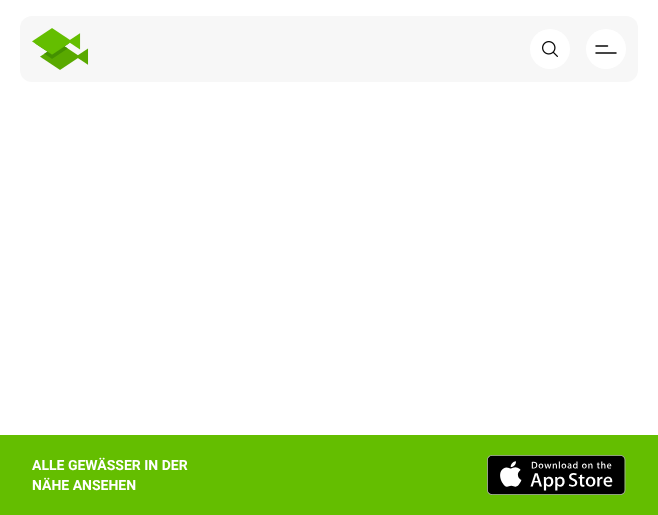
<!DOCTYPE html>
<meta charset="utf-8">
<style>body { margin: 0 } canvas { display: block }</style>
<canvas id="canvas" width="658" height="515"></canvas>
<script type="module">
  const canvas = document.getElementById("canvas");
  const ctx = canvas.getContext("2d");
  ctx.miterLimit = 4;
  ctx.fontKerning = "normal";
  async function loadImage(src) {
    const img = new Image();
    img.src = src;
    await img.decode();
    return img;
  }

  ctx.fillStyle = "#ffffff";
  ctx.fillRect(0, 0, 658, 515);
  ctx.fillStyle = "#f7f7f7";
  ctx.beginPath();
  ctx.roundRect(20, 16, 618, 66, 12);
  ctx.fill();
  ctx.drawImage(await loadImage("img1.png"), 32, 28, 57, 42);
  ctx.fillStyle = "#ffffff";
  ctx.beginPath();
  ctx.arc(550, 49, 20, 0, Math.PI * 2);
  ctx.fill();
  ctx.drawImage(await loadImage("img2.png"), 542, 41, 16, 16);
  ctx.beginPath();
  ctx.arc(606, 49, 20, 0, Math.PI * 2);
  ctx.fill();
  ctx.beginPath();
  ctx.moveTo(596, 46);
  ctx.lineTo(607.5, 46);
  ctx.moveTo(596, 53);
  ctx.lineTo(616, 53);
  ctx.strokeStyle = "#080808";
  ctx.lineWidth = 1.5;
  ctx.lineCap = "round";
  ctx.lineJoin = "round";
  ctx.stroke();
  ctx.fillStyle = "#64be00";
  ctx.fillRect(0, 435, 658, 80);
  ctx.font = "bold 14px Roboto";
  ctx.fillStyle = "#ffffff";
  ctx.fillText("ALLE GEWÄSSER IN DER", 32, 470);
  ctx.fillText("NÄHE ANSEHEN", 32, 490);
  ctx.drawImage(await loadImage("img3.png"), 487, 455, 139, 40);
</script>
